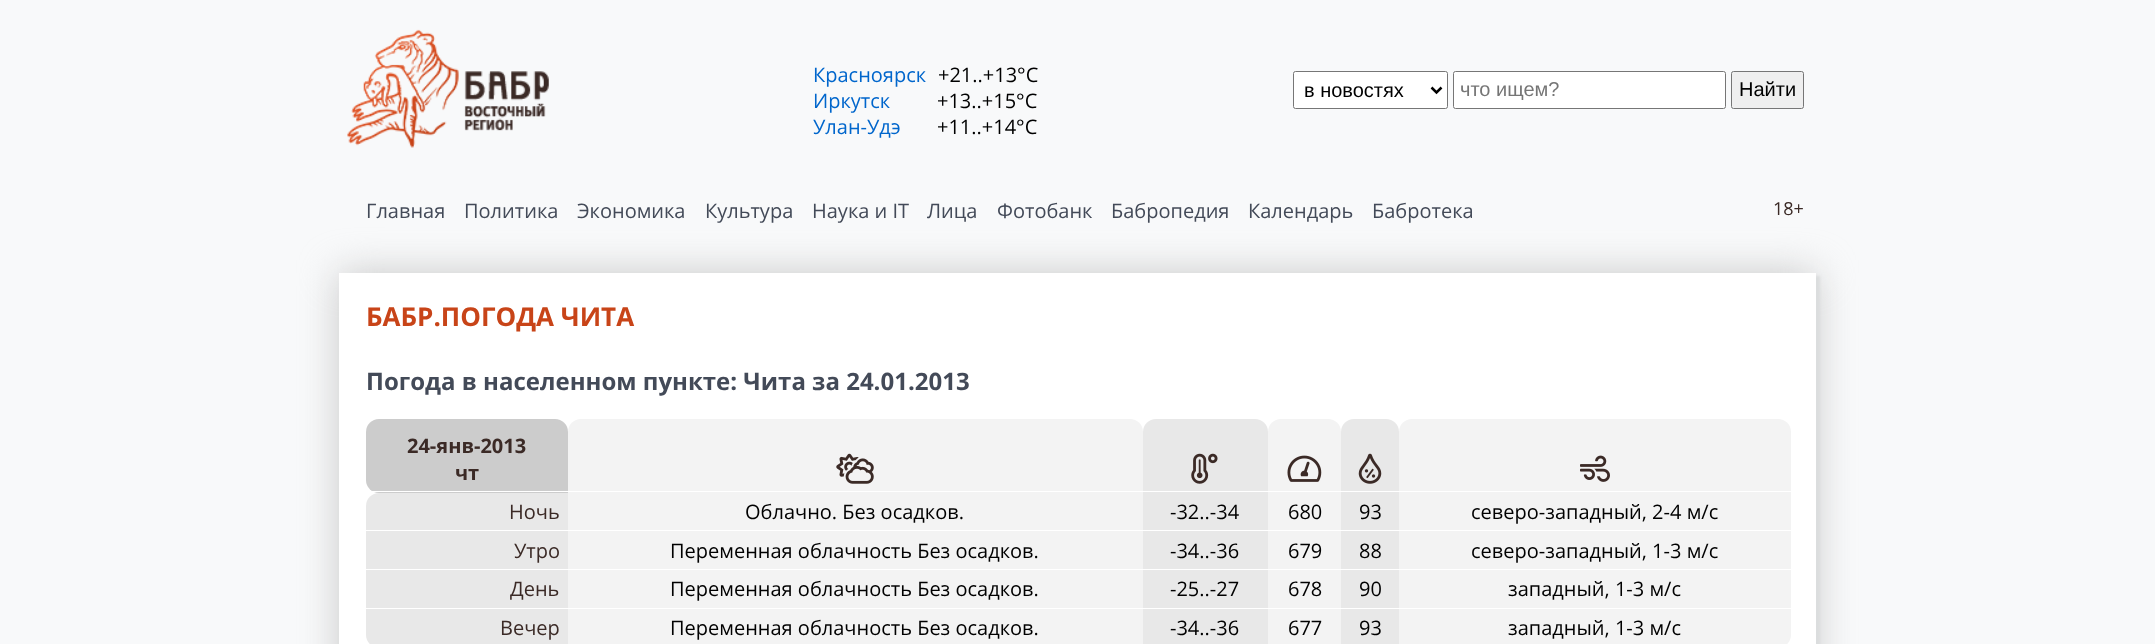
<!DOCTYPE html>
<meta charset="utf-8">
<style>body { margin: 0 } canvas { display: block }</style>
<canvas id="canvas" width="2155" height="644"></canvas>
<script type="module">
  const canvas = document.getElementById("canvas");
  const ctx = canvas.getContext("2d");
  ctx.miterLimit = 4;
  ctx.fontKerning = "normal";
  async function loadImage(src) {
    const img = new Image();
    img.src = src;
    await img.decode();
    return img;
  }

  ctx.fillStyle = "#f8f9fa";
  ctx.fillRect(0, 0, 2155, 644);
  ctx.drawImage(await loadImage("img1.png"), 347, 29, 202, 119);
  ctx.font = "20px Open Sans";
  ctx.fillStyle = "#0066cc";
  ctx.fillText("Красноярск", 813, 82);
  ctx.fillStyle = "#000000";
  ctx.fillText("+21..+13°C", 938, 82);
  ctx.fillStyle = "#0066cc";
  ctx.fillText("Иркутск", 813, 108);
  ctx.fillStyle = "#000000";
  ctx.fillText("+13..+15°C", 937, 108);
  ctx.fillStyle = "#0066cc";
  ctx.fillText("Улан-Удэ", 813, 134);
  ctx.fillStyle = "#000000";
  ctx.fillText("+11..+14°C", 937, 134);
  ctx.fillStyle = "#ffffff";
  ctx.beginPath();
  ctx.roundRect(1293.5, 71.5, 154, 37, 2);
  ctx.fill();
  ctx.strokeStyle = "#767676";
  ctx.stroke();
  ctx.beginPath();
  ctx.moveTo(1431.5, 87.5);
  ctx.lineTo(1436.5, 92.5);
  ctx.lineTo(1441.5, 87.5);
  ctx.strokeStyle = "#000000";
  ctx.lineWidth = 2.5;
  ctx.stroke();
  ctx.font = "20px Liberation Sans";
  ctx.fillStyle = "#000000";
  ctx.fillText("в новостях", 1304, 97);
  ctx.fillStyle = "#ffffff";
  ctx.beginPath();
  ctx.roundRect(1453.5, 71.5, 272, 37, 2);
  ctx.fill();
  ctx.strokeStyle = "#767676";
  ctx.lineWidth = 1;
  ctx.stroke();
  ctx.fillStyle = "#757575";
  ctx.fillText("что ищем?", 1460, 96);
  ctx.fillStyle = "#efefef";
  ctx.beginPath();
  ctx.roundRect(1731.5, 71.5, 72, 37, 2);
  ctx.fill();
  ctx.stroke();
  ctx.fillStyle = "#000000";
  ctx.fillText("Найти", 1739, 96);
  ctx.fillStyle = "#c8c8c8";
  ctx.filter = "blur(19px)";
  ctx.beginPath();
  ctx.rect(339, 273, 1477, 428);
  ctx.fill();
  ctx.filter = "none";
  ctx.font = "20px Open Sans";
  ctx.fillStyle = "#434a58";
  ctx.fillText("Главная", 366, 218);
  ctx.fillText("Политика", 464, 218);
  ctx.fillText("Экономика", 577, 218);
  ctx.fillText("Культура", 705, 218);
  ctx.fillText("Наука и IT", 812, 218);
  ctx.fillText("Лица", 927, 218);
  ctx.fillText("Фотобанк", 997, 218);
  ctx.fillText("Бабропедия", 1111, 218);
  ctx.fillText("Календарь", 1248, 218);
  ctx.fillText("Бабротека", 1372, 218);
  ctx.font = "18px Open Sans";
  ctx.fillStyle = "#3b2a26";
  ctx.fillText("18+", 1773, 215);
  ctx.fillStyle = "#dbddde";
  ctx.filter = "blur(1px)";
  ctx.beginPath();
  ctx.rect(343, 276, 1477, 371);
  ctx.fill();
  ctx.filter = "none";
  ctx.fillStyle = "#ffffff";
  ctx.fillRect(339, 273, 1477, 371);
  ctx.font = "bold 26px Open Sans";
  ctx.fillStyle = "#c84418";
  ctx.fillText("БАБР.ПОГОДА ЧИТА", 366, 326);
  ctx.font = "bold 24px Open Sans";
  ctx.fillStyle = "#434a58";
  ctx.fillText("Погода в населенном пункте: Чита за 24.01.2013", 366, 390);
  ctx.fillStyle = "#f3f3f3";
  ctx.beginPath();
  ctx.roundRect(1399, 419, 392, 74, [13, 13, 0, 0]);
  ctx.fill();
  ctx.fillStyle = "#cccccc";
  ctx.beginPath();
  ctx.roundRect(366, 419, 202, 74, [13, 13, 0, 13]);
  ctx.fill();
  ctx.fillStyle = "#f3f3f3";
  ctx.beginPath();
  ctx.roundRect(568, 419, 575, 74, [13, 13, 0, 0]);
  ctx.fill();
  ctx.fillStyle = "#e8e8e8";
  ctx.beginPath();
  ctx.roundRect(1143, 419, 125, 74, [13, 13, 0, 0]);
  ctx.fill();
  ctx.fillStyle = "#f3f3f3";
  ctx.beginPath();
  ctx.roundRect(1268, 419, 73, 74, [13, 13, 0, 0]);
  ctx.fill();
  ctx.fillStyle = "#e8e8e8";
  ctx.beginPath();
  ctx.roundRect(1341, 419, 58, 74, [13, 13, 0, 0]);
  ctx.fill();
  ctx.fillStyle = "#ffffff";
  ctx.fillRect(366, 491, 1427, 1);
  ctx.drawImage(await loadImage("img2.png"), 1580, 455, 30, 27);
  ctx.font = "bold 20px Open Sans";
  ctx.fillStyle = "#3b2a26";
  ctx.fillText("24-янв-2013", 407, 453);
  ctx.fillText("чт", 455, 480);
  ctx.drawImage(await loadImage("img3.png"), 836, 453, 38, 31);
  ctx.drawImage(await loadImage("img4.png"), 1191, 453, 27, 31);
  ctx.drawImage(await loadImage("img5.png"), 1287, 455, 35, 27);
  ctx.drawImage(await loadImage("img6.png"), 1358, 453, 24, 31);
  ctx.fillStyle = "#e8e8e8";
  ctx.beginPath();
  ctx.roundRect(366, 493, 202, 38, [13, 0, 0, 0]);
  ctx.fill();
  ctx.font = "20px Open Sans";
  ctx.fillStyle = "#3b2a26";
  ctx.fillText("Ночь", 509, 519);
  ctx.fillStyle = "#f3f3f3";
  ctx.fillRect(568, 493, 575, 37);
  ctx.fillStyle = "#ffffff";
  ctx.fillRect(366, 530, 202, 1);
  ctx.fillStyle = "#000000";
  ctx.fillText("Облачно. Без осадков.", 745, 519);
  ctx.fillStyle = "#e8e8e8";
  ctx.fillRect(1143, 493, 125, 37);
  ctx.fillStyle = "#000000";
  ctx.fillText("-32..-34", 1170, 519);
  ctx.fillStyle = "#f3f3f3";
  ctx.fillRect(1268, 493, 73, 37);
  ctx.fillStyle = "#000000";
  ctx.fillText("680", 1288, 519);
  ctx.fillStyle = "#e8e8e8";
  ctx.fillRect(1341, 493, 58, 37);
  ctx.fillStyle = "#000000";
  ctx.fillText("93", 1359, 519);
  ctx.fillStyle = "#f3f3f3";
  ctx.fillRect(1399, 493, 392, 37);
  ctx.fillStyle = "#000000";
  ctx.fillText("северо-западный, 2-4 м/с", 1471, 519);
  ctx.fillStyle = "#e8e8e8";
  ctx.fillRect(366, 531, 202, 38);
  ctx.fillStyle = "#3b2a26";
  ctx.fillText("Утро", 514, 558);
  ctx.fillStyle = "#f3f3f3";
  ctx.fillRect(568, 531, 575, 38);
  ctx.fillStyle = "#000000";
  ctx.fillText("Переменная облачность Без осадков.", 670, 558);
  ctx.fillStyle = "#e8e8e8";
  ctx.fillRect(1143, 531, 125, 38);
  ctx.fillStyle = "#000000";
  ctx.fillText("-34..-36", 1170, 558);
  ctx.fillStyle = "#f3f3f3";
  ctx.fillRect(1268, 531, 73, 38);
  ctx.fillStyle = "#000000";
  ctx.fillText("679", 1288, 558);
  ctx.fillStyle = "#e8e8e8";
  ctx.fillRect(1341, 531, 58, 38);
  ctx.fillStyle = "#000000";
  ctx.fillText("88", 1359, 558);
  ctx.fillStyle = "#f3f3f3";
  ctx.fillRect(1399, 531, 392, 38);
  ctx.fillStyle = "#000000";
  ctx.fillText("северо-западный, 1-3 м/с", 1471, 558);
  ctx.fillStyle = "#e8e8e8";
  ctx.fillRect(366, 570, 202, 38);
  ctx.fillStyle = "#3b2a26";
  ctx.fillText("День", 510, 596);
  ctx.fillStyle = "#f3f3f3";
  ctx.fillRect(568, 570, 575, 38);
  ctx.fillStyle = "#000000";
  ctx.fillText("Переменная облачность Без осадков.", 670, 596);
  ctx.fillStyle = "#e8e8e8";
  ctx.fillRect(1143, 570, 125, 38);
  ctx.fillStyle = "#000000";
  ctx.fillText("-25..-27", 1170, 596);
  ctx.fillStyle = "#f3f3f3";
  ctx.fillRect(1268, 570, 73, 38);
  ctx.fillStyle = "#000000";
  ctx.fillText("678", 1288, 596);
  ctx.fillStyle = "#e8e8e8";
  ctx.fillRect(1341, 570, 58, 38);
  ctx.fillStyle = "#000000";
  ctx.fillText("90", 1359, 596);
  ctx.fillStyle = "#f3f3f3";
  ctx.fillRect(1399, 570, 392, 38);
  ctx.fillStyle = "#000000";
  ctx.fillText("западный, 1-3 м/с", 1508, 596);
  ctx.fillStyle = "#e8e8e8";
  ctx.beginPath();
  ctx.moveTo(366, 609);
  ctx.lineTo(568, 609);
  ctx.lineTo(568, 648);
  ctx.lineTo(379, 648);
  ctx.bezierCurveTo(372, 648, 366, 642, 366, 635);
  ctx.closePath();
  ctx.fill();
  ctx.fillStyle = "#3b2a26";
  ctx.fillText("Вечер", 500, 635);
  ctx.fillStyle = "#f3f3f3";
  ctx.fillRect(568, 609, 575, 35);
  ctx.fillStyle = "#000000";
  ctx.fillText("Переменная облачность Без осадков.", 670, 635);
  ctx.fillStyle = "#e8e8e8";
  ctx.fillRect(1143, 609, 125, 35);
  ctx.fillStyle = "#000000";
  ctx.fillText("-34..-36", 1170, 635);
  ctx.fillStyle = "#f3f3f3";
  ctx.fillRect(1268, 609, 73, 35);
  ctx.fillStyle = "#000000";
  ctx.fillText("677", 1288, 635);
  ctx.fillStyle = "#e8e8e8";
  ctx.fillRect(1341, 609, 58, 35);
  ctx.fillStyle = "#000000";
  ctx.fillText("93", 1359, 635);
  ctx.fillStyle = "#f3f3f3";
  ctx.beginPath();
  ctx.moveTo(1399, 609);
  ctx.lineTo(1791, 609);
  ctx.lineTo(1791, 635);
  ctx.bezierCurveTo(1791, 642, 1785, 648, 1778, 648);
  ctx.lineTo(1399, 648);
  ctx.closePath();
  ctx.fill();
  ctx.fillStyle = "#000000";
  ctx.fillText("западный, 1-3 м/с", 1508, 635);
</script>
